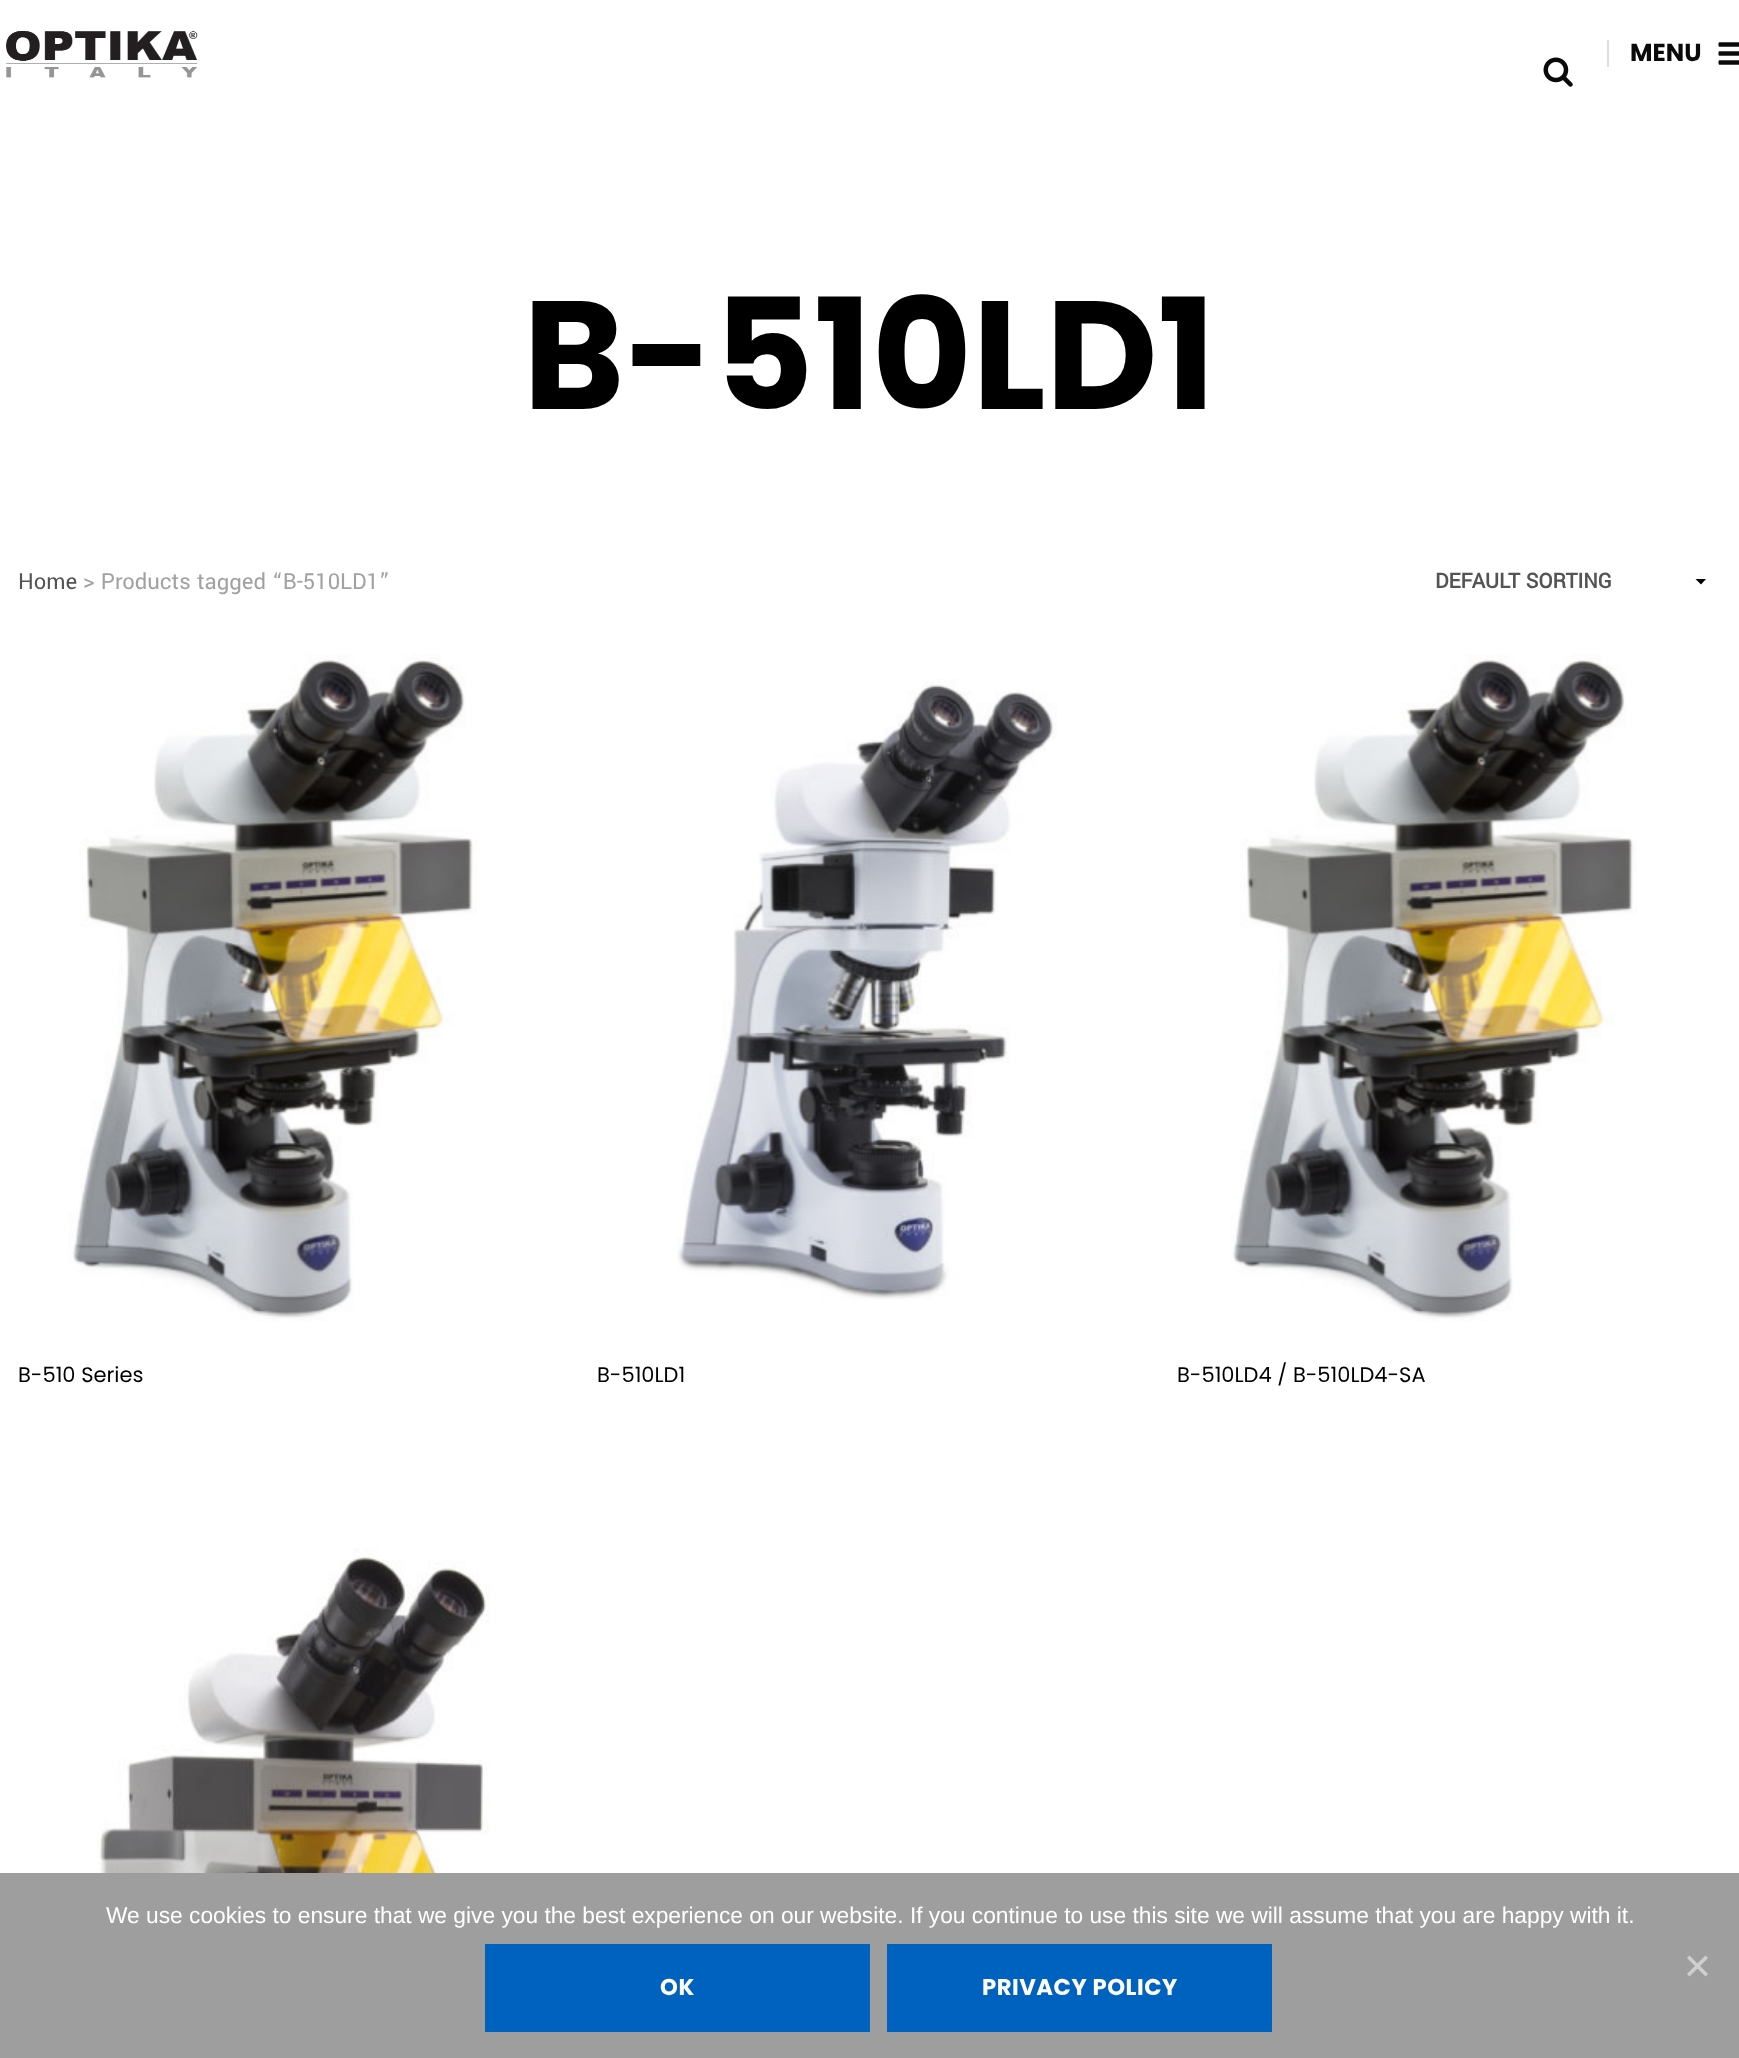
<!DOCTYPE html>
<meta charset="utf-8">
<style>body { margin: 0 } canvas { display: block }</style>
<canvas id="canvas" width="1739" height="2058"></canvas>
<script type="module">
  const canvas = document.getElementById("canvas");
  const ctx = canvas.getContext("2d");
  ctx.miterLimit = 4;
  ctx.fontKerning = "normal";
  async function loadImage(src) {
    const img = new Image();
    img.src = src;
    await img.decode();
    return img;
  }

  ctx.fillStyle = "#ffffff";
  ctx.fillRect(0, 0, 1739, 2058);
  ctx.drawImage(await loadImage("img1.png"), 6, 31, 192, 47);
  ctx.fillStyle = "#dddddd";
  ctx.fillRect(1607, 40, 2, 27);
  ctx.font = "bold 24.5px Poppins";
  ctx.fillStyle = "#0a0a0a";
  ctx.fillText("MENU", 1630, 61);
  ctx.drawImage(await loadImage("img2.png"), 1718, 42, 21, 23);
  ctx.drawImage(await loadImage("img3.png"), 1543, 57, 30, 30);
  ctx.font = "bold 154px Poppins";
  ctx.fillStyle = "#000000";
  ctx.fillText("B-510LD1", 523, 409);
  ctx.font = "24.5px Yantramanav";
  ctx.fillStyle = "#545454";
  ctx.fillText("Home", 18, 589);
  ctx.fillStyle = "#a1a1a1";
  ctx.fillText("> Products tagged “B-510LD1”", 83, 589);
  ctx.fillStyle = "#000000";
  ctx.beginPath();
  ctx.moveTo(1706, 579);
  ctx.lineTo(1701, 584.5);
  ctx.lineTo(1695.5, 579);
  ctx.closePath();
  ctx.fill();
  ctx.font = "bold 22.75px Yantramanav";
  ctx.fillStyle = "#545454";
  ctx.fillText("DEFAULT SORTING", 1435, 588);
  ctx.drawImage(await loadImage("img4.png"), 68, 653, 409, 669);
  ctx.font = "21px Poppins";
  ctx.fillStyle = "#000000";
  ctx.fillText("B-510 Series", 18, 1382);
  ctx.drawImage(await loadImage("img5.png"), 677, 679, 380, 621);
  ctx.fillText("B-510LD1", 597, 1382);
  ctx.drawImage(await loadImage("img6.png"), 1231, 653, 406, 669);
  ctx.fillText("B-510LD4 / B-510LD4-SA", 1177, 1382);
  ctx.drawImage(await loadImage("img7.png"), 97, 1547, 406, 326);
  ctx.fillStyle = "#9e9e9e";
  ctx.fillRect(0, 1873, 1739, 185);
  ctx.font = "22.75px Liberation Sans";
  ctx.fillStyle = "#ffffff";
  ctx.fillText("We use cookies to ensure that we give you the best experience on our website. If you continue to use this site we will assume that you are happy with it.", 106, 1923);
  ctx.fillStyle = "#cfcfcf";
  ctx.beginPath();
  ctx.moveTo(1705.5, 1955.5);
  ctx.lineTo(1708, 1958);
  ctx.lineTo(1689.5, 1976.5);
  ctx.lineTo(1687, 1974);
  ctx.closePath();
  ctx.fill();
  ctx.beginPath();
  ctx.moveTo(1687, 1958);
  ctx.lineTo(1689.5, 1955.5);
  ctx.lineTo(1708, 1974);
  ctx.lineTo(1705.5, 1976.5);
  ctx.closePath();
  ctx.fill();
  ctx.fillStyle = "#0062bf";
  ctx.fillRect(485, 1944, 385, 88);
  ctx.letterSpacing = "0.5px";
  ctx.font = "bold 22.75px Poppins";
  ctx.fillStyle = "#ffffff";
  ctx.fillText("OK", 660, 1995);
  ctx.fillStyle = "#0062bf";
  ctx.fillRect(887, 1944, 385, 88);
  ctx.fillStyle = "#ffffff";
  ctx.fillText("PRIVACY POLICY", 982, 1995);
</script>
